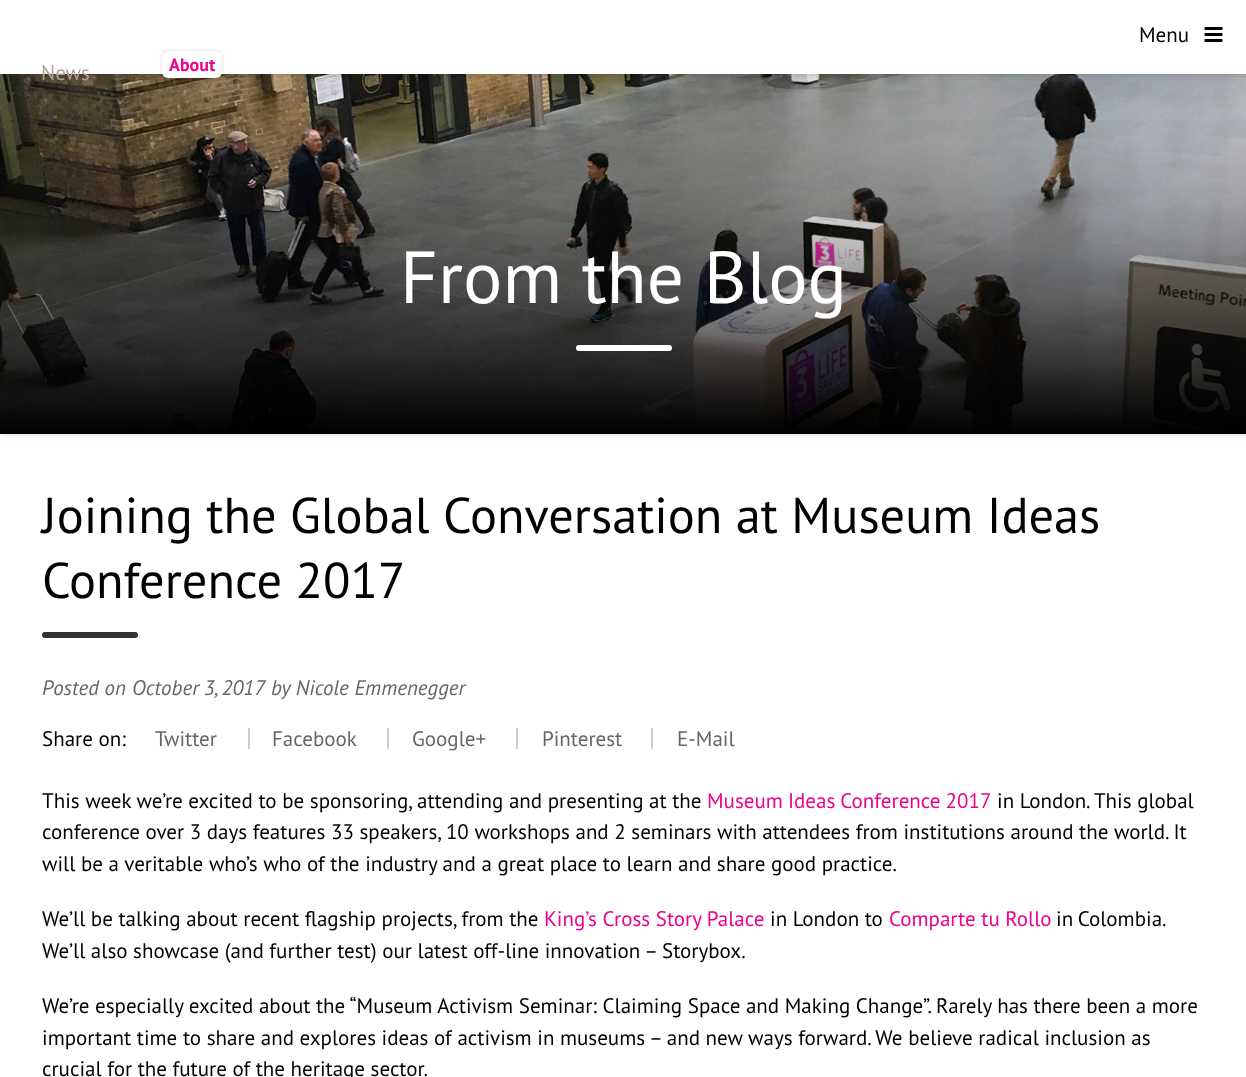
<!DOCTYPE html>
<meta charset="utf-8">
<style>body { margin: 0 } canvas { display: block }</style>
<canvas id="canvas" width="1246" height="1077"></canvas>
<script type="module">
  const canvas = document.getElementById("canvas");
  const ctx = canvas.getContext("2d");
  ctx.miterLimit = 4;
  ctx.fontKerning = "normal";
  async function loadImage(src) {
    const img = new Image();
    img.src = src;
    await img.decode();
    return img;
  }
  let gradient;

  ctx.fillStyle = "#ffffff";
  ctx.fillRect(0, 0, 1246, 1077);
  ctx.fillStyle = "rgba(0, 0, 0, 0.2)";
  ctx.filter = "blur(3px)";
  ctx.beginPath();
  ctx.rect(3, 74, 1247, 360);
  ctx.fill();
  ctx.filter = "none";
  ctx.fillStyle = "#ffffff";
  ctx.fillRect(0, 69, 1246, 5);
  ctx.drawImage(await loadImage("img2.png"), 0, 74, 1246, 359);
  ctx.save();
  ctx.beginPath();
  ctx.moveTo(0, 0);
  ctx.lineTo(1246, 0);
  ctx.lineTo(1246, 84);
  ctx.lineTo(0, 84);
  ctx.closePath();
  ctx.moveTo(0, 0);
  ctx.lineTo(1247, 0);
  ctx.lineTo(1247, 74);
  ctx.lineTo(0, 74);
  ctx.closePath();
  ctx.clip("evenodd");
  ctx.fillStyle = "rgba(0, 0, 0, 0.2)";
  ctx.filter = "blur(3px)";
  ctx.beginPath();
  ctx.rect(3, 0, 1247, 74);
  ctx.fill();
  ctx.filter = "none";
  ctx.restore();
  ctx.font = "21px PT Sans";
  ctx.fillStyle = "#000000";
  ctx.fillText("Menu", 1139, 42);
  ctx.drawImage(await loadImage("img1.png"), 1204, 27, 19, 15);
  ctx.fillStyle = "#aca499";
  ctx.fillText("News", 41, 80);
  ctx.fillStyle = "rgba(0, 0, 0, 0.2)";
  ctx.filter = "blur(1.5px)";
  ctx.beginPath();
  ctx.roundRect(162, 51, 60, 27, 6);
  ctx.fill();
  ctx.filter = "none";
  ctx.fillStyle = "#ffffff";
  ctx.beginPath();
  ctx.roundRect(162, 51, 60, 27, 6);
  ctx.fill();
  ctx.font = "bold 18px PT Sans";
  ctx.fillStyle = "#ec008c";
  ctx.fillText("About", 169, 71);
  gradient = ctx.createLinearGradient(623, 434, 623, 74);
  gradient.addColorStop(0, "#000000");
  gradient.addColorStop(0.05, "rgba(0, 0, 0, 0.92)");
  gradient.addColorStop(0.11, "rgba(0, 0, 0, 0.83)");
  gradient.addColorStop(0.16, "rgba(0, 0, 0, 0.75)");
  gradient.addColorStop(0.21, "rgba(0, 0, 0, 0.67)");
  gradient.addColorStop(0.27, "rgba(0, 0, 0, 0.59)");
  gradient.addColorStop(0.33, "rgba(0, 0, 0, 0.51)");
  gradient.addColorStop(0.38, "rgba(0, 0, 0, 0.43)");
  gradient.addColorStop(0.45, "rgba(0, 0, 0, 0.36)");
  gradient.addColorStop(0.51, "rgba(0, 0, 0, 0.28)");
  gradient.addColorStop(0.58, "rgba(0, 0, 0, 0.21)");
  gradient.addColorStop(0.65, "rgba(0, 0, 0, 0.14)");
  gradient.addColorStop(0.73, "rgba(0, 0, 0, 0.09)");
  gradient.addColorStop(0.81, "rgba(0, 0, 0, 0.04)");
  gradient.addColorStop(0.91, "rgba(0, 0, 0, 0.01)");
  gradient.addColorStop(1, "rgba(0, 0, 0, 0)");
  ctx.fillStyle = gradient;
  ctx.fillRect(0, 120, 1246, 314);
  ctx.font = "73.5px PT Sans";
  ctx.fillStyle = "#ffffff";
  ctx.fillText("From the Blog", 400, 303);
  ctx.beginPath();
  ctx.roundRect(576, 345, 96, 6, 3);
  ctx.fill();
  ctx.font = "50.4px PT Sans";
  ctx.fillStyle = "#000000";
  ctx.fillText("Joining the Global Conversation at Museum Ideas", 42, 533);
  ctx.fillText("Conference 2017", 42, 598);
  ctx.fillStyle = "#333333";
  ctx.beginPath();
  ctx.roundRect(42, 632, 96, 6, 3);
  ctx.fill();
  ctx.font = "italic 21px PT Sans";
  ctx.fillStyle = "#666666";
  ctx.fillText("Posted on", 42, 695);
  ctx.wordSpacing = "-1px";
  ctx.fillText("October 3, 2017", 132, 695);
  ctx.wordSpacing = "0px";
  ctx.fillText("by Nicole Emmenegger", 271, 695);
  ctx.font = "21px PT Sans";
  ctx.fillStyle = "#000000";
  ctx.fillText("Share on:", 42, 746);
  ctx.fillStyle = "#666666";
  ctx.fillText("Twitter", 155, 746);
  ctx.fillStyle = "#cccccc";
  ctx.fillRect(248, 728, 2, 21);
  ctx.fillStyle = "#666666";
  ctx.fillText("Facebook", 272, 746);
  ctx.fillStyle = "#cccccc";
  ctx.fillRect(387, 728, 2, 21);
  ctx.fillStyle = "#666666";
  ctx.fillText("Google+", 412, 746);
  ctx.fillStyle = "#cccccc";
  ctx.fillRect(516, 728, 2, 21);
  ctx.fillStyle = "#666666";
  ctx.fillText("Pinterest", 542, 746);
  ctx.fillStyle = "#cccccc";
  ctx.fillRect(651, 728, 2, 21);
  ctx.fillStyle = "#666666";
  ctx.fillText("E-Mail", 677, 746);
  ctx.fillStyle = "#000000";
  ctx.fillText("This week we’re excited to be sponsoring, attending and presenting at the", 42, 808);
  ctx.wordSpacing = "-0.5px";
  ctx.fillStyle = "#ec008c";
  ctx.fillText("Museum Ideas Conference 2017", 707, 808);
  ctx.wordSpacing = "0px";
  ctx.fillStyle = "#000000";
  ctx.fillText("in London. This global", 997, 808);
  ctx.fillText("conference over 3 days features 33 speakers, 10 workshops and 2 seminars with attendees from institutions around the world. It", 42, 839);
  ctx.fillText("will be a veritable who’s who of the industry and a great place to learn and share good practice.", 42, 871);
  ctx.fillText("We’ll be talking about recent flagship projects, from the", 42, 926);
  ctx.fillStyle = "#ec008c";
  ctx.fillText("King’s Cross Story Palace", 544, 926);
  ctx.fillStyle = "#000000";
  ctx.fillText("in London to", 770, 926);
  ctx.fillStyle = "#ec008c";
  ctx.fillText("Comparte tu Rollo", 889, 926);
  ctx.wordSpacing = "-1px";
  ctx.fillStyle = "#000000";
  ctx.fillText("in Colombia.", 1056, 926);
  ctx.wordSpacing = "0px";
  ctx.fillText("We’ll also showcase (and further test) our latest off-line innovation – Storybox.", 42, 958);
  ctx.fillText("We’re especially excited about the “Museum Activism Seminar: Claiming Space and Making Change”. Rarely has there been a more", 42, 1013);
  ctx.fillText("important time to share and explores ideas of activism in museums – and new ways forward. We believe radical inclusion as", 42, 1045);
  ctx.fillText("crucial for the future of the heritage sector.", 42, 1076);
</script>
